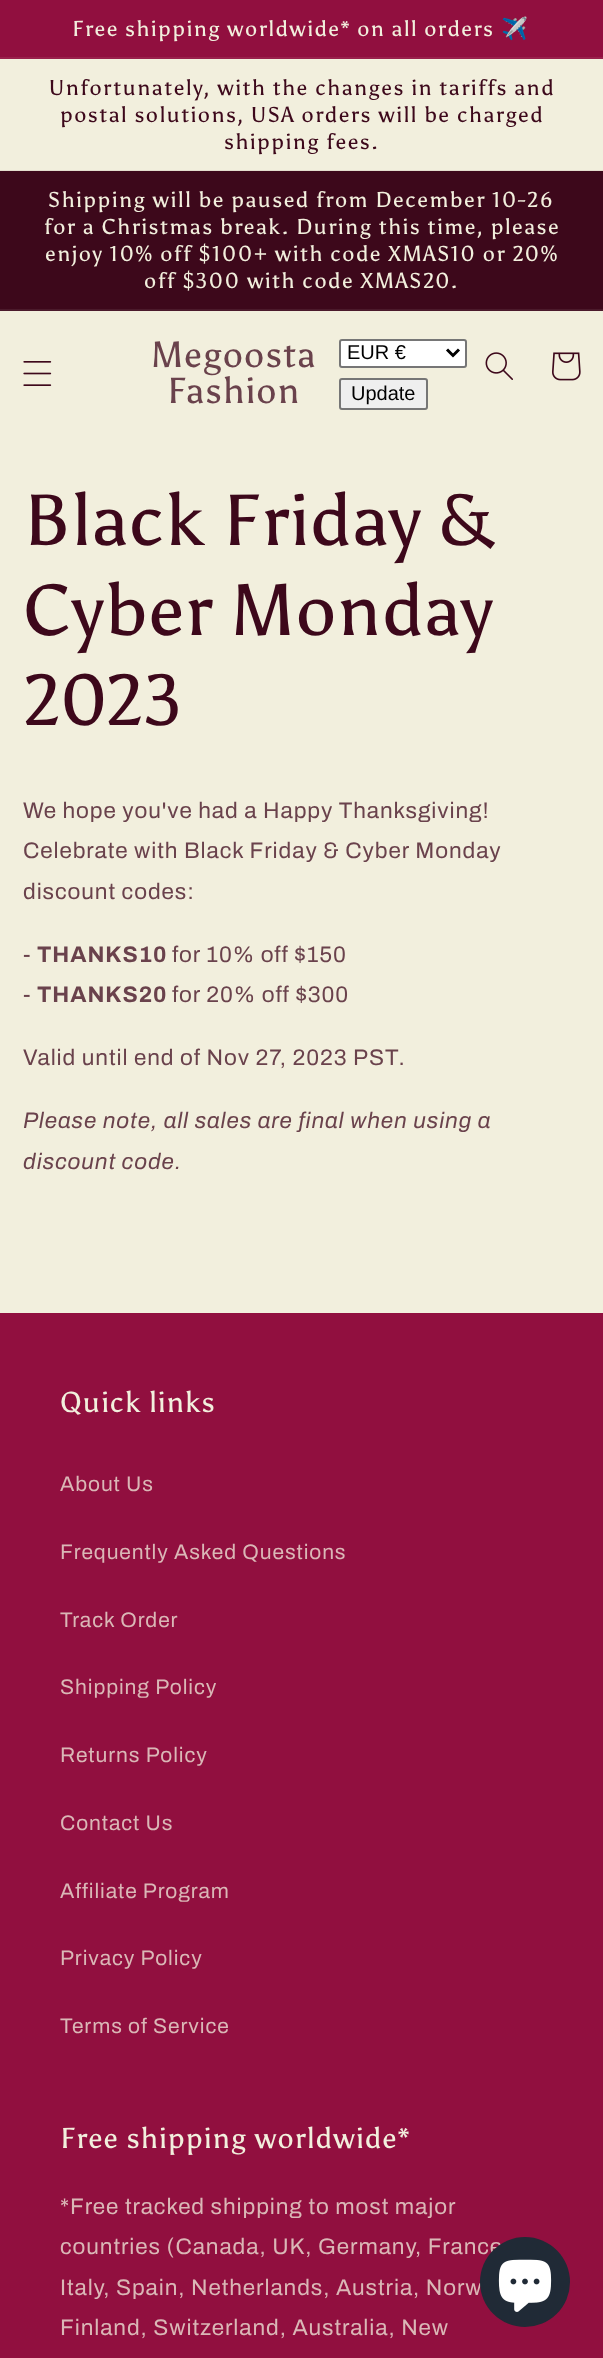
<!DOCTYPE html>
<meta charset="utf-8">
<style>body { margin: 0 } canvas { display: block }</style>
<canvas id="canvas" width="603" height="2358"></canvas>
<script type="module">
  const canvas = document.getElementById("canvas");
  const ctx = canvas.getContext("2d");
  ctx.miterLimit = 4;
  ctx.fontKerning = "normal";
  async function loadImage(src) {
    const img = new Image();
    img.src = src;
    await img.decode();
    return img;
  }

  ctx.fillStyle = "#f2efdd";
  ctx.fillRect(0, 0, 603, 2358);
  ctx.fillStyle = "#910f3f";
  ctx.fillRect(0, 0, 603, 57);
  ctx.fillStyle = "#99214c";
  ctx.fillRect(0, 57, 603, 2);
  ctx.letterSpacing = "1.5px";
  ctx.wordSpacing = "-0.25px";
  ctx.font = "21.6px Asul";
  ctx.fillStyle = "#f2efdd";
  ctx.fillText("Free shipping worldwide* on all orders", 72, 36);
  ctx.wordSpacing = "0px";
  ctx.font = "21.6px Noto Color Emoji";
  ctx.fillText("✈️", 501, 36);
  ctx.fillStyle = "#e4ddcd";
  ctx.fillRect(0, 170, 603, 1);
  ctx.font = "21.6px Asul";
  ctx.fillStyle = "#3d081b";
  ctx.fillText("Unfortunately, with the changes in tariffs and", 49, 95);
  ctx.fillText("postal solutions, USA orders will be charged", 60, 122);
  ctx.fillText("shipping fees.", 224, 149);
  ctx.fillRect(0, 171, 603, 138);
  ctx.fillStyle = "#4b1a2b";
  ctx.fillRect(0, 309, 603, 2);
  ctx.fillStyle = "#f2efdd";
  ctx.fillText("Shipping will be paused from December 10-26", 48, 207);
  ctx.fillText("for a Christmas break. During this time, please", 44, 234);
  ctx.fillText("enjoy 10% off $100+ with code XMAS10 or 20%", 45, 261);
  ctx.fillText("off $300 with code XMAS20.", 144, 288);
  ctx.drawImage(await loadImage("img1.png"), 23, 361, 29, 25);
  ctx.letterSpacing = "1.1px";
  ctx.font = "36px Asul";
  ctx.fillStyle = "#6a424c";
  ctx.fillText("Megoosta", 151, 367);
  ctx.fillText("Fashion", 167, 403);
  ctx.fillStyle = "#ffffff";
  ctx.beginPath();
  ctx.roundRect(340, 340, 126, 27, 2);
  ctx.fill();
  ctx.strokeStyle = "#767676";
  ctx.lineWidth = 2;
  ctx.stroke();
  ctx.beginPath();
  ctx.moveTo(447, 349.5);
  ctx.lineTo(453, 355.5);
  ctx.lineTo(459, 349.5);
  ctx.strokeStyle = "#000000";
  ctx.lineWidth = 3;
  ctx.stroke();
  ctx.letterSpacing = "0px";
  ctx.font = "20px Liberation Sans";
  ctx.fillStyle = "#000000";
  ctx.fillText("EUR €", 347, 359);
  ctx.fillStyle = "#efefef";
  ctx.beginPath();
  ctx.roundRect(340, 379, 87, 30, 2);
  ctx.fill();
  ctx.strokeStyle = "#767676";
  ctx.lineWidth = 2;
  ctx.stroke();
  ctx.fillStyle = "#000000";
  ctx.fillText("Update", 351, 400);
  ctx.drawImage(await loadImage("img2.png"), 485, 352, 28, 28);
  ctx.drawImage(await loadImage("img3.png"), 552, 352, 29, 29);
  ctx.letterSpacing = "1.1px";
  ctx.font = "72px Asul";
  ctx.fillStyle = "#3d081b";
  ctx.fillText("Black Friday &", 23, 545);
  ctx.fillText("Cyber Monday", 23, 635);
  ctx.fillText("2023", 23, 725);
  ctx.letterSpacing = "0.9px";
  ctx.font = "22.5px Archivo";
  ctx.fillStyle = "#6a424c";
  ctx.fillText("We hope you've had a Happy Thanksgiving!", 23, 818);
  ctx.fillText("Celebrate with Black Friday & Cyber Monday", 23, 858);
  ctx.fillText("discount codes:", 23, 899);
  ctx.fillText("-", 23, 962);
  ctx.font = "bold 22.5px Archivo";
  ctx.fillText("THANKS10", 37, 962);
  ctx.font = "22.5px Archivo";
  ctx.fillText("for 10% off $150", 172, 962);
  ctx.fillText("-", 23, 1002);
  ctx.font = "bold 22.5px Archivo";
  ctx.fillText("THANKS20", 37, 1002);
  ctx.font = "22.5px Archivo";
  ctx.fillText("for 20% off $300", 172, 1002);
  ctx.fillText("Valid until end of Nov 27, 2023 PST.", 23, 1065);
  ctx.font = "italic 22.5px Archivo";
  ctx.fillText("Please note, all sales are final when using a", 23, 1128);
  ctx.fillText("discount code.", 23, 1169);
  ctx.fillStyle = "#910f3f";
  ctx.fillRect(0, 1313, 603, 1045);
  ctx.letterSpacing = "1.1px";
  ctx.font = "28.75px Asul";
  ctx.fillStyle = "#f2efdd";
  ctx.fillText("Quick links", 60, 1412);
  ctx.letterSpacing = "0.9px";
  ctx.font = "21px Archivo";
  ctx.fillStyle = "#dab7b6";
  ctx.fillText("About Us", 60, 1491);
  ctx.fillText("Frequently Asked Questions", 60, 1559);
  ctx.fillText("Track Order", 60, 1627);
  ctx.fillText("Shipping Policy", 60, 1694);
  ctx.fillText("Returns Policy", 60, 1762);
  ctx.fillText("Contact Us", 60, 1830);
  ctx.fillText("Affiliate Program", 60, 1898);
  ctx.fillText("Privacy Policy", 60, 1965);
  ctx.fillText("Terms of Service", 60, 2033);
  ctx.letterSpacing = "1.1px";
  ctx.font = "28.75px Asul";
  ctx.fillStyle = "#f2efdd";
  ctx.fillText("Free shipping worldwide*", 60, 2148);
  ctx.letterSpacing = "0.9px";
  ctx.font = "22.5px Archivo";
  ctx.fillStyle = "#dab7b6";
  ctx.fillText("*Free tracked shipping to most major", 60, 2214);
  ctx.fillText("countries (Canada, UK, Germany, France", 60, 2254);
  ctx.fillText("Italy, Spain, Netherlands, Austria, Norw", 60, 2295);
  ctx.fillText("Finland, Switzerland, Australia, New", 60, 2335);
  ctx.fillStyle = "#202a36";
  ctx.beginPath();
  ctx.arc(525, 2282, 45, 0, Math.PI * 2);
  ctx.fill();
  ctx.drawImage(await loadImage("img4.png"), 498, 2259, 54, 53);
</script>
